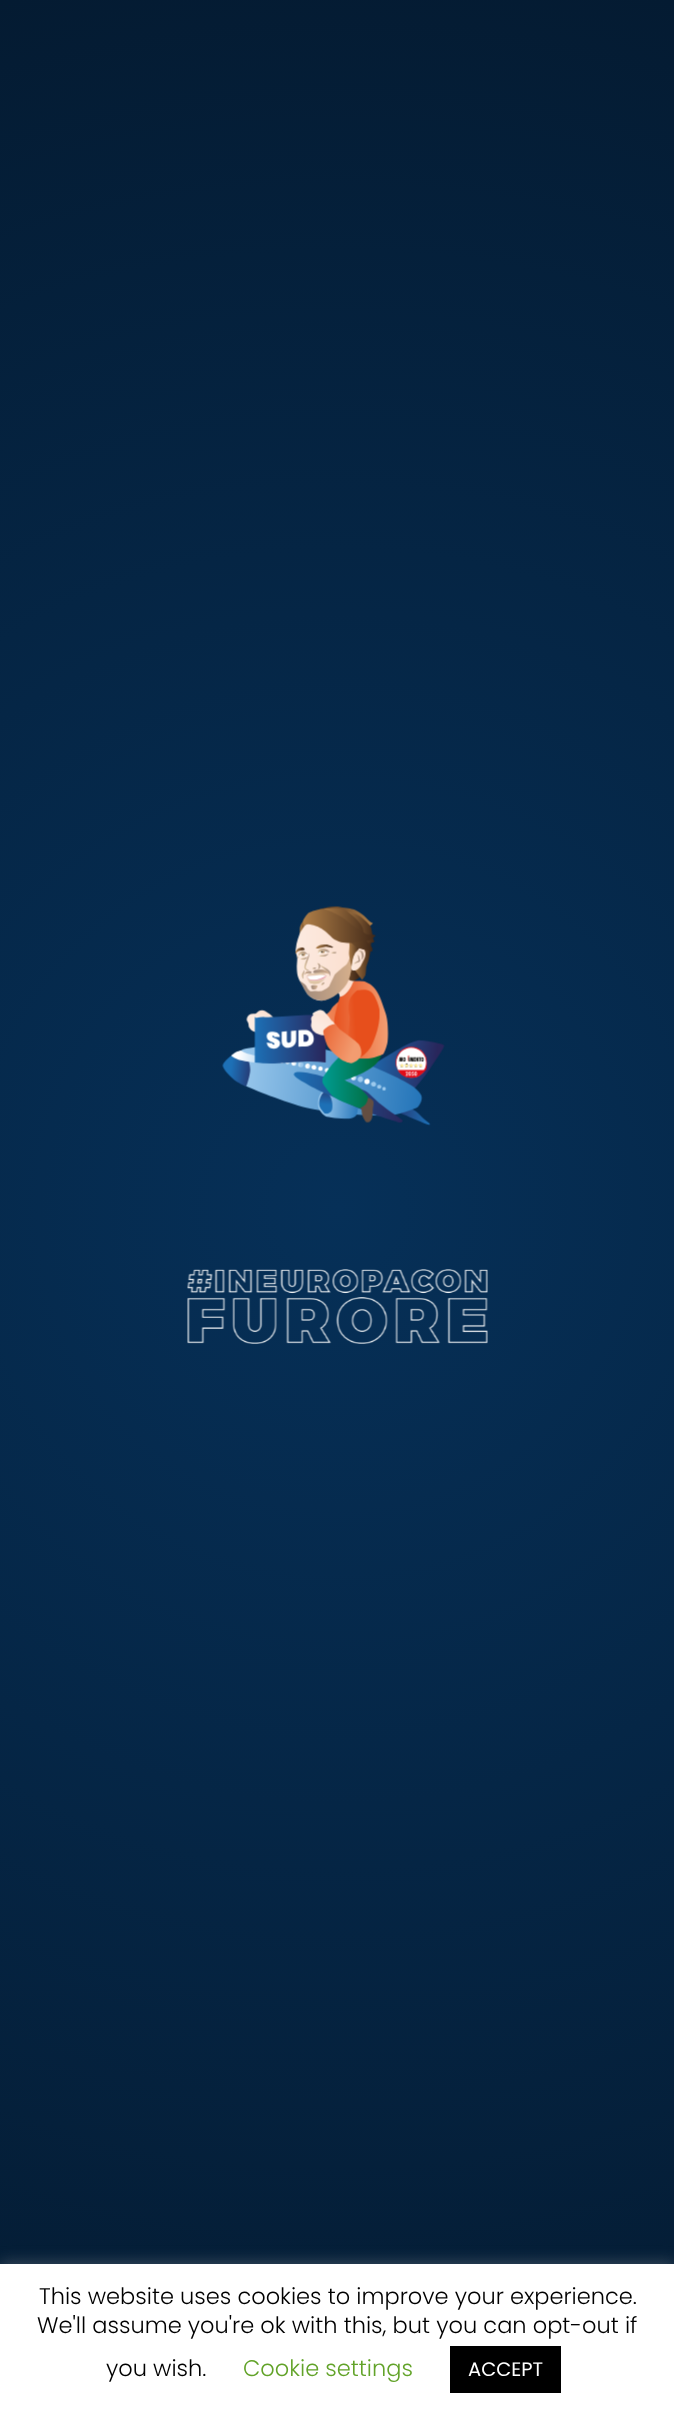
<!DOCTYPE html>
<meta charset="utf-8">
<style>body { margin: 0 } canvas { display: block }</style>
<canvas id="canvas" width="674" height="2418"></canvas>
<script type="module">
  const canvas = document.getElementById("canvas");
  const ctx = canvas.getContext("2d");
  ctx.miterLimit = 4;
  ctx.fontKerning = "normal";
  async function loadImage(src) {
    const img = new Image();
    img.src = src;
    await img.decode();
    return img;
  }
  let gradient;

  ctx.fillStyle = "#ffffff";
  ctx.fillRect(0, 0, 674, 2418);
  gradient = ctx.createRadialGradient(338, 1209, 0, 338, 1209, 1255);
  gradient.addColorStop(0, "#063058");
  gradient.addColorStop(1, "#041b32");
  ctx.fillStyle = gradient;
  ctx.fillRect(0, 0, 674, 2264);
  ctx.drawImage(await loadImage("img1.png"), 222, 906, 223, 220);
  ctx.drawImage(await loadImage("img2.png"), 187, 1269, 301, 75);
  ctx.fillStyle = "rgba(172, 171, 171, 0.3)";
  ctx.filter = "blur(7.5px)";
  ctx.beginPath();
  ctx.rect(0, 2262, 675, 155);
  ctx.fill();
  ctx.filter = "none";
  ctx.fillStyle = "#ffffff";
  ctx.fillRect(0, 2264, 674, 154);
  ctx.font = "300 22.5px Poppins";
  ctx.fillStyle = "#000000";
  ctx.fillText("This website uses cookies to improve your experience.", 39, 2304);
  ctx.fillText("We'll assume you're ok with this, but you can opt-out if", 37, 2333);
  ctx.fillText("you wish.", 106, 2376);
  ctx.fillStyle = "#62a329";
  ctx.fillText("Cookie settings", 243, 2376);
  ctx.fillStyle = "#000000";
  ctx.fillRect(450, 2346, 111, 47);
  ctx.font = "19.5px Poppins";
  ctx.fillStyle = "#ffffff";
  ctx.fillText("ACCEPT", 468, 2376);
</script>
